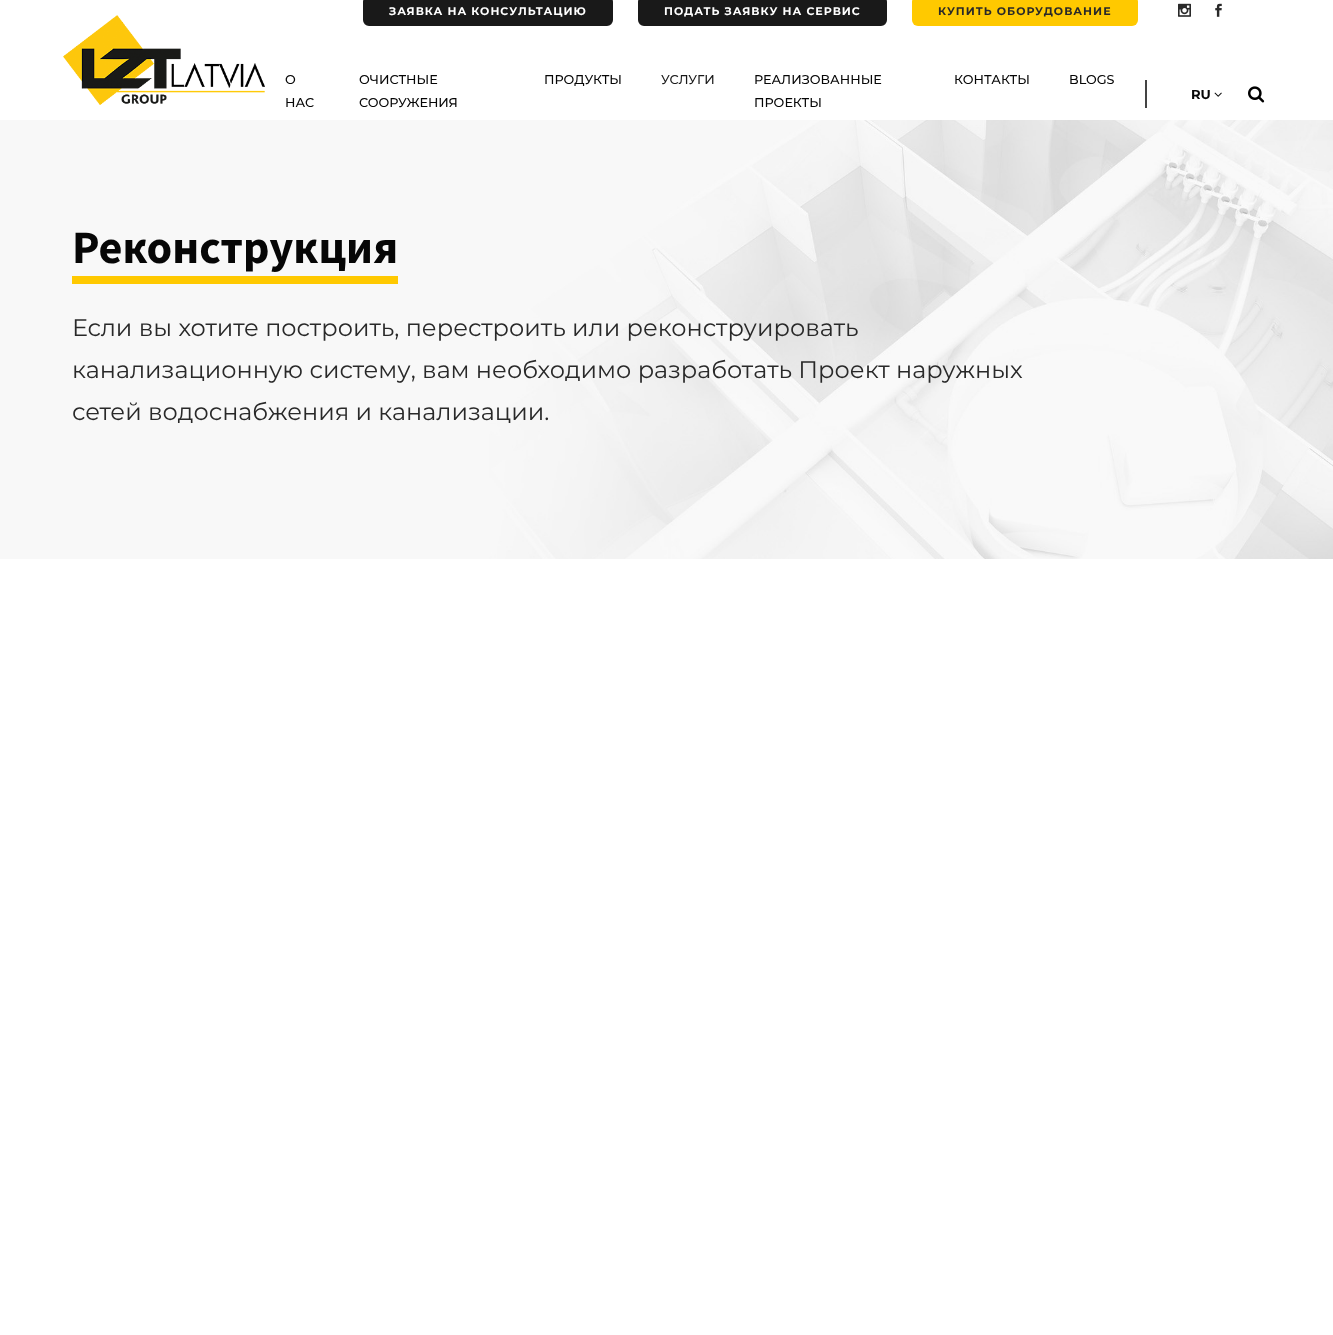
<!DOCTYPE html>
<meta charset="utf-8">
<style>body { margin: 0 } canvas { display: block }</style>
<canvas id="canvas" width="1333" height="1335"></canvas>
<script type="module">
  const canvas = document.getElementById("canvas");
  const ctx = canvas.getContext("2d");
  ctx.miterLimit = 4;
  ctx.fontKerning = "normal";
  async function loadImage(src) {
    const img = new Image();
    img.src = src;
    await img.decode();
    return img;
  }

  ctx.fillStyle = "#ffffff";
  ctx.fillRect(0, 0, 1333, 1335);
  ctx.drawImage(await loadImage("img1.png"), 63, 15, 202, 90);
  ctx.fillStyle = "#191919";
  ctx.beginPath();
  ctx.roundRect(364, -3, 248, 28, 5);
  ctx.fill();
  ctx.strokeStyle = "#191919";
  ctx.lineWidth = 2;
  ctx.stroke();
  ctx.letterSpacing = "1px";
  ctx.font = "bold 11px Montserrat";
  ctx.fillStyle = "#ffffff";
  ctx.fillText("ЗАЯВКА НА КОНСУЛЬТАЦИЮ", 389, 15);
  ctx.fillStyle = "#191919";
  ctx.beginPath();
  ctx.roundRect(639, -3, 247, 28, 5);
  ctx.fill();
  ctx.stroke();
  ctx.fillStyle = "#ffffff";
  ctx.fillText("ПОДАТЬ ЗАЯВКУ НА СЕРВИС", 664, 15);
  ctx.fillStyle = "#ffc900";
  ctx.beginPath();
  ctx.roundRect(912, -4, 226, 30, 6);
  ctx.fill();
  ctx.fillStyle = "#292929";
  ctx.fillText("КУПИТЬ ОБОРУДОВАНИЕ", 938, 15);
  ctx.drawImage(await loadImage("img2.png"), 1178, 3, 13, 14);
  ctx.drawImage(await loadImage("img3.png"), 1215, 3, 7, 14);
  ctx.letterSpacing = "0px";
  ctx.font = "500 12.75px Montserrat";
  ctx.fillStyle = "#060606";
  ctx.fillText("О", 285, 84);
  ctx.fillText("НАС", 285, 107);
  ctx.fillText("ОЧИСТНЫЕ", 359, 84);
  ctx.fillText("СООРУЖЕНИЯ", 359, 107);
  ctx.fillText("ПРОДУКТЫ", 544, 84);
  ctx.fillStyle = "#191919";
  ctx.fillText("УСЛУГИ", 661, 84);
  ctx.fillStyle = "#060606";
  ctx.fillText("РЕАЛИЗОВАННЫЕ", 754, 84);
  ctx.fillText("ПРОЕКТЫ", 754, 107);
  ctx.fillText("КОНТАКТЫ", 954, 84);
  ctx.fillText("BLOGS", 1069, 84);
  ctx.fillStyle = "#444444";
  ctx.fillRect(1145, 80, 2, 28);
  ctx.font = "bold 13px Montserrat";
  ctx.fillStyle = "#060606";
  ctx.fillText("RU", 1191, 99);
  ctx.drawImage(await loadImage("img4.png"), 1214, 92, 8, 5);
  ctx.drawImage(await loadImage("img5.png"), 1248, 86, 17, 17);
  ctx.drawImage(await loadImage("img6.png"), 0, 120, 1333, 439);
  ctx.font = "bold 46.25px Source Sans Pro";
  ctx.fillText("Реконструкция", 72, 263);
  ctx.fillStyle = "#ffc900";
  ctx.fillRect(72, 276, 326, 8);
  ctx.font = "24px Montserrat";
  ctx.fillStyle = "#292929";
  ctx.fillText("Если вы хотите построить, перестроить или реконструировать", 72, 336);
  ctx.fillText("канализационную систему, вам необходимо разработать Проект наружных", 72, 378);
  ctx.fillText("сетей водоснабжения и канализации.", 72, 420);
</script>
